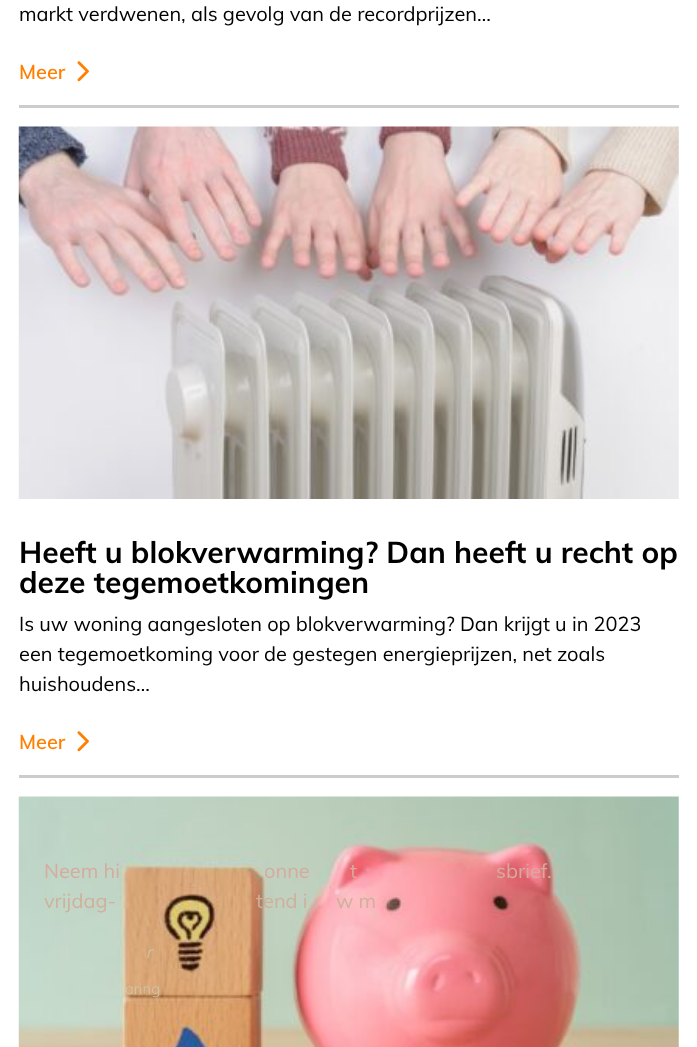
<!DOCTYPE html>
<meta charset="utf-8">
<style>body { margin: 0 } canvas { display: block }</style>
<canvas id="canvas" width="697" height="1047"></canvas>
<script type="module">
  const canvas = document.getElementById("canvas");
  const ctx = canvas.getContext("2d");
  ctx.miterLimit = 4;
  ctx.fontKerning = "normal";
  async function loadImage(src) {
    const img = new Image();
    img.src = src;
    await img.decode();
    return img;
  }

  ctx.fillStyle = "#ffffff";
  ctx.fillRect(0, 0, 697, 1047);
  ctx.fillStyle = "#cccccc";
  ctx.fillRect(19, 105, 660, 3);
  ctx.font = "20px Muli";
  ctx.fillStyle = "#000000";
  ctx.fillText("markt verdwenen, als gevolg van de recordprijzen…", 19, 21);
  ctx.font = "600 20px Muli";
  ctx.fillStyle = "#ff8000";
  ctx.fillText("Meer", 19, 79);
  ctx.drawImage(await loadImage("img1.png"), 77, 61, 12, 21);
  ctx.fillStyle = "#cccccc";
  ctx.fillRect(19, 775, 660, 3);
  ctx.drawImage(await loadImage("img2.png"), 18, 126, 661, 373);
  ctx.font = "bold 30px Muli";
  ctx.fillStyle = "#000000";
  ctx.fillText("Heeft u blokverwarming? Dan heeft u recht op", 19, 563);
  ctx.fillText("deze tegemoetkomingen", 19, 593);
  ctx.font = "20px Muli";
  ctx.fillText("Is uw woning aangesloten op blokverwarming? Dan krijgt u in 2023", 19, 631);
  ctx.fillText("een tegemoetkoming voor de gestegen energieprijzen, net zoals", 19, 661);
  ctx.fillText("huishoudens…", 19, 691);
  ctx.font = "600 20px Muli";
  ctx.fillStyle = "#ff8000";
  ctx.fillText("Meer", 19, 749);
  ctx.drawImage(await loadImage("img1.png"), 77, 731, 12, 21);
  ctx.drawImage(await loadImage("img3.png"), 18, 796, 661, 251);
  ctx.font = "20px Muli";
  ctx.fillStyle = "#d6ab9e";
  ctx.fillText("Neem hi", 44, 878);
  ctx.fillText("onne", 264, 878);
  ctx.fillText("t", 350, 878);
  ctx.fillText("sbrief.", 496, 878);
  ctx.fillStyle = "#cfb09b";
  ctx.fillText("vrijdag-", 44, 908);
  ctx.fillText("tend i", 256, 908);
  ctx.fillText("w m", 336, 908);
  ctx.font = "italic bold 19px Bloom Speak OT";
  ctx.fillStyle = "#cec1a3";
  ctx.fillText("r", 146, 958);
  ctx.font = "300 15px Muli";
  ctx.fillStyle = "#cbc7ae";
  ctx.fillText("aring", 125, 994);
</script>
